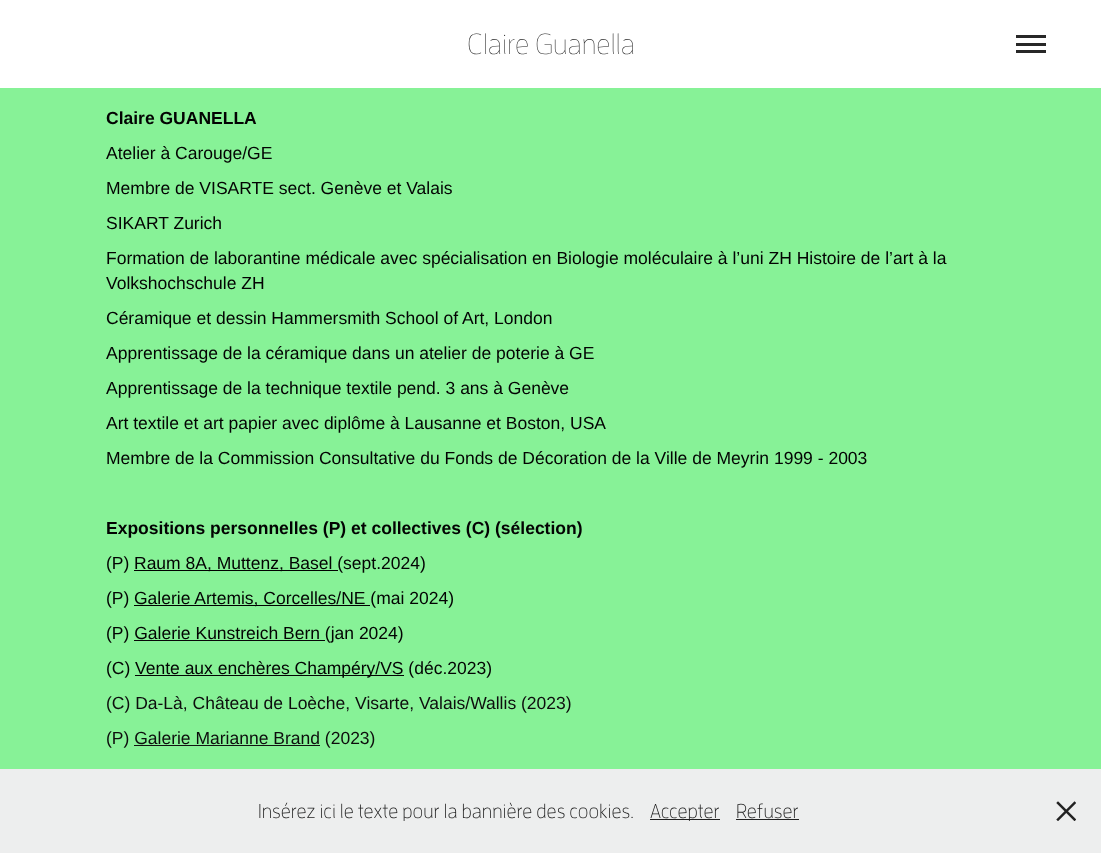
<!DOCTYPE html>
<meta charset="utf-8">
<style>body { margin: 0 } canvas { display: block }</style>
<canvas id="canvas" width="1101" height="853"></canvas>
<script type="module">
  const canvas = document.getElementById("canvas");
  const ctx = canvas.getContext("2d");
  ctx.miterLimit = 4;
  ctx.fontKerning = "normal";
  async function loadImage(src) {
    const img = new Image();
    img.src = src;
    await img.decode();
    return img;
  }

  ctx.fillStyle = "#87f297";
  ctx.fillRect(0, 0, 1101, 853);
  ctx.fillStyle = "#ffffff";
  ctx.fillRect(0, 0, 1101, 88);
  ctx.font = "100 28.75px 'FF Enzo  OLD'";
  ctx.fillStyle = "#282828";
  ctx.fillText("Claire Guanella", 467, 54);
  ctx.fillRect(1016, 35, 30, 3);
  ctx.fillRect(1016, 43, 30, 3);
  ctx.fillRect(1016, 50, 30, 3);
  ctx.font = "bold 17.5px Liberation Sans";
  ctx.fillStyle = "#030303";
  ctx.fillText("Claire GUANELLA", 106, 124);
  ctx.font = "17.5px Liberation Sans";
  ctx.fillText("Atelier à Carouge/GE", 106, 159);
  ctx.fillText("Membre de VISARTE sect. Genève et Valais", 106, 194);
  ctx.fillText("SIKART Zurich", 106, 229);
  ctx.fillText("Formation de laborantine médicale avec spécialisation en Biologie moléculaire à l’uni ZH Histoire de l’art à la", 106, 264);
  ctx.fillText("Volkshochschule ZH", 106, 289);
  ctx.fillText("Céramique et dessin Hammersmith School of Art, London", 106, 324);
  ctx.fillText("Apprentissage de la céramique dans un atelier de poterie à GE", 106, 359);
  ctx.fillText("Apprentissage de la technique textile pend. 3 ans à Genève", 106, 394);
  ctx.fillText("Art textile et art papier avec diplôme à Lausanne et Boston, USA", 106, 429);
  ctx.fillText("Membre de la Commission Consultative du Fonds de Décoration de la Ville de Meyrin 1999 - 2003", 106, 464);
  ctx.font = "bold 17.5px Liberation Sans";
  ctx.fillText("Expositions personnelles (P) et collectives (C) (sélection)", 106, 534);
  ctx.font = "17.5px Liberation Sans";
  ctx.fillText("(P)", 106, 569);
  ctx.fillStyle = "#000000";
  ctx.fillRect(134, 570, 204, 1);
  ctx.fillStyle = "#030303";
  ctx.fillText("Raum 8A, Muttenz, Basel (sept.2024)", 134, 569);
  ctx.fillText("(P)", 106, 604);
  ctx.fillStyle = "#000000";
  ctx.fillRect(134, 605, 236, 1);
  ctx.fillStyle = "#030303";
  ctx.fillText("Galerie Artemis, Corcelles/NE (mai 2024)", 134, 604);
  ctx.fillText("(P) Galerie Kunstreich Bern (jan 2024)", 106, 639);
  ctx.fillStyle = "#070707";
  ctx.fillRect(134, 640, 191, 1);
  ctx.fillStyle = "#030303";
  ctx.fillText("(C)", 106, 674);
  ctx.fillRect(135, 675, 269, 1);
  ctx.fillText("Vente aux enchères Champéry/VS (déc.2023)", 135, 674);
  ctx.fillStyle = "#0d0d0d";
  ctx.fillText("(C) Da-Là, Château de Loèche, Visarte, Valais/Wallis (2023)", 106, 709);
  ctx.fillText("(P) Galerie Marianne Brand (2023)", 106, 744);
  ctx.fillStyle = "#121212";
  ctx.fillRect(134, 745, 186, 1);
  ctx.fillStyle = "#edeeee";
  ctx.fillRect(0, 769, 1101, 84);
  ctx.font = "300 20px 'FF Enzo  OLD'";
  ctx.fillStyle = "#212121";
  ctx.fillText("Insérez ici le texte pour la bannière des cookies.", 258, 818);
  ctx.fillRect(650, 819, 70, 1);
  ctx.fillText("Accepter", 650, 818);
  ctx.fillText("Refuser", 736, 818);
  ctx.fillRect(736, 819, 63, 1);
  ctx.drawImage(await loadImage("img1.png"), 1056, 801, 20, 20);
</script>
